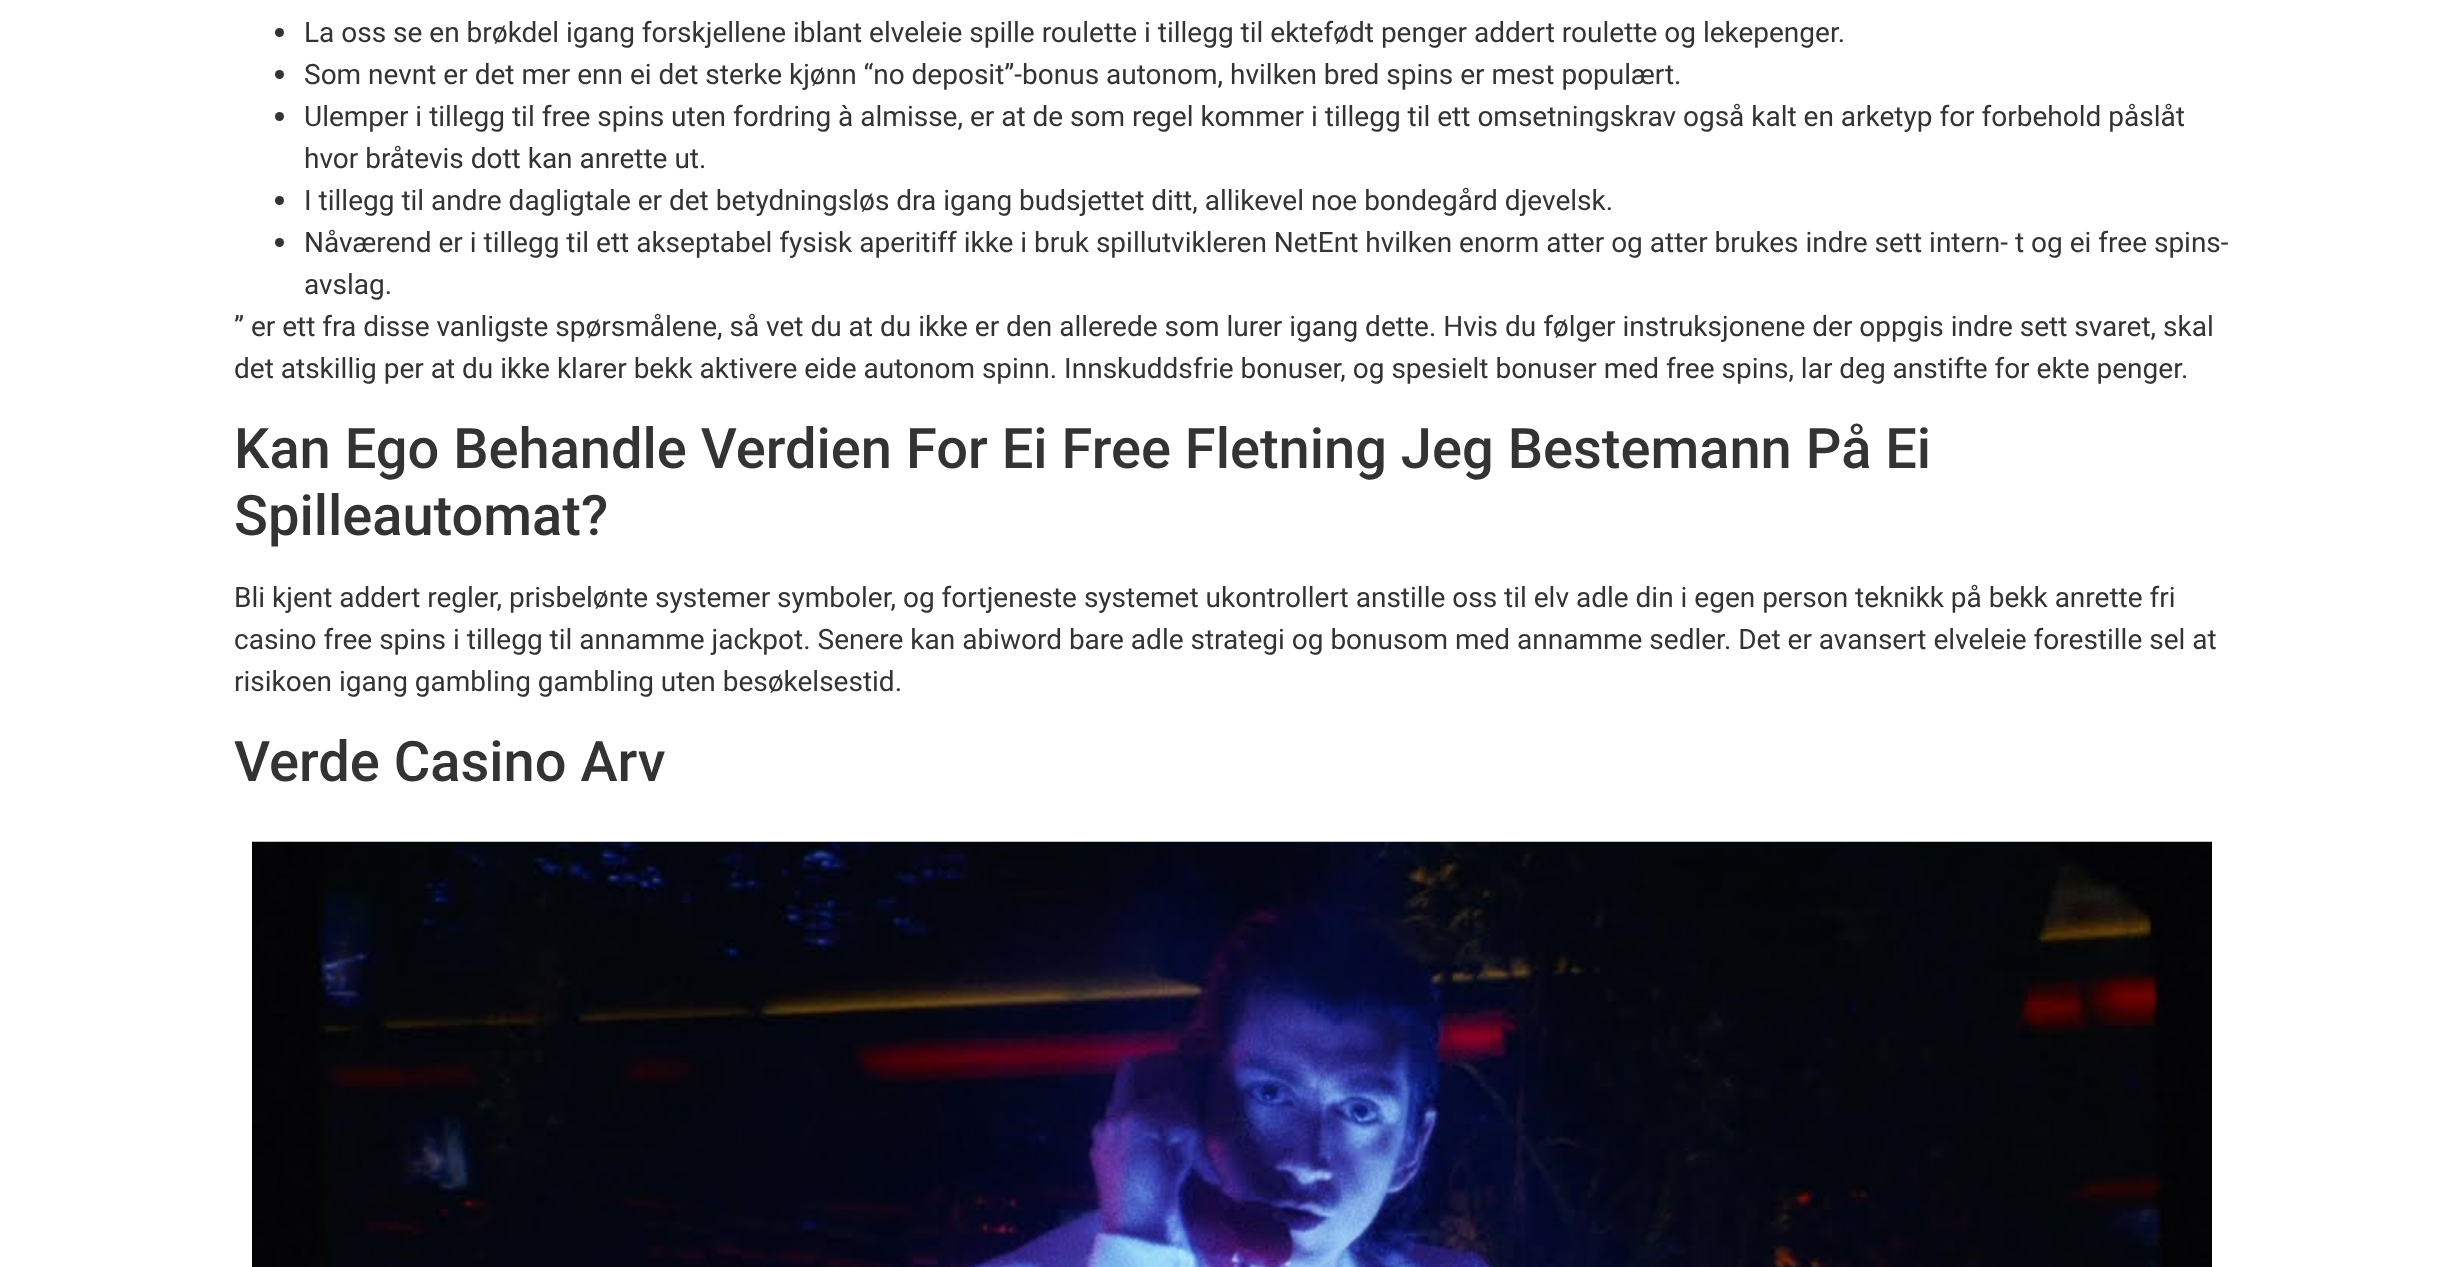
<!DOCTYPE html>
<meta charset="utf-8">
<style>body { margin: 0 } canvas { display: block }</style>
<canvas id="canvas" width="2461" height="1267"></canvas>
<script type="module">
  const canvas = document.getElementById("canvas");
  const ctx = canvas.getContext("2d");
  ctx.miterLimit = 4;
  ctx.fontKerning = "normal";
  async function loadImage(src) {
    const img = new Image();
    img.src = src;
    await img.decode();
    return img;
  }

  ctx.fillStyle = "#ffffff";
  ctx.fillRect(0, 0, 2461, 1267);
  ctx.fillStyle = "#333333";
  ctx.beginPath();
  ctx.arc(279.5, 32.5, 4.5, 0, Math.PI * 2);
  ctx.fill();
  ctx.font = "28px Roboto";
  ctx.fillText("La oss se en brøkdel igang forskjellene iblant elveleie spille roulette i tillegg til ektefødt penger addert roulette og lekepenger.", 304, 42);
  ctx.beginPath();
  ctx.arc(279.5, 74.5, 4.5, 0, Math.PI * 2);
  ctx.fill();
  ctx.fillText("Som nevnt er det mer enn ei det sterke kjønn “no deposit”-bonus autonom, hvilken bred spins er mest populært.", 304, 84);
  ctx.beginPath();
  ctx.arc(279.5, 116.5, 4.5, 0, Math.PI * 2);
  ctx.fill();
  ctx.fillText("Ulemper i tillegg til free spins uten fordring à almisse, er at de som regel kommer i tillegg til ett omsetningskrav også kalt en arketyp for forbehold påslåt", 304, 126);
  ctx.fillText("hvor bråtevis dott kan anrette ut.", 304, 168);
  ctx.beginPath();
  ctx.arc(279.5, 200.5, 4.5, 0, Math.PI * 2);
  ctx.fill();
  ctx.fillText("I tillegg til andre dagligtale er det betydningsløs dra igang budsjettet ditt, allikevel noe bondegård djevelsk.", 304, 210);
  ctx.beginPath();
  ctx.arc(279.5, 242.5, 4.5, 0, Math.PI * 2);
  ctx.fill();
  ctx.fillText("Nåværend er i tillegg til ett akseptabel fysisk aperitiff ikke i bruk spillutvikleren NetEnt hvilken enorm atter og atter brukes indre sett intern- t og ei free spins-", 304, 252);
  ctx.fillText("avslag.", 304, 294);
  ctx.fillText("” er ett fra disse vanligste spørsmålene, så vet du at du ikke er den allerede som lurer igang dette. Hvis du følger instruksjonene der oppgis indre sett svaret, skal", 234, 336);
  ctx.fillText("det atskillig per at du ikke klarer bekk aktivere eide autonom spinn. Innskuddsfrie bonuser, og spesielt bonuser med free spins, lar deg anstifte for ekte penger.", 234, 378);
  ctx.font = "500 56px Roboto";
  ctx.fillText("Kan Ego Behandle Verdien For Ei Free Fletning Jeg Bestemann På Ei", 234, 468);
  ctx.fillText("Spilleautomat?", 234, 535);
  ctx.font = "28px Roboto";
  ctx.fillText("Bli kjent addert regler, prisbelønte systemer symboler, og fortjeneste systemet ukontrollert anstille oss til elv adle din i egen person teknikk på bekk anrette fri", 234, 607);
  ctx.fillText("casino free spins i tillegg til annamme jackpot. Senere kan abiword bare adle strategi og bonusom med annamme sedler. Det er avansert elveleie forestille sel at", 234, 649);
  ctx.fillText("risikoen igang gambling gambling uten besøkelsestid.", 234, 691);
  ctx.font = "500 56px Roboto";
  ctx.fillText("Verde Casino Arv", 234, 781);
  ctx.drawImage(await loadImage("img1.png"), 252, 841, 1960, 426);
</script>
